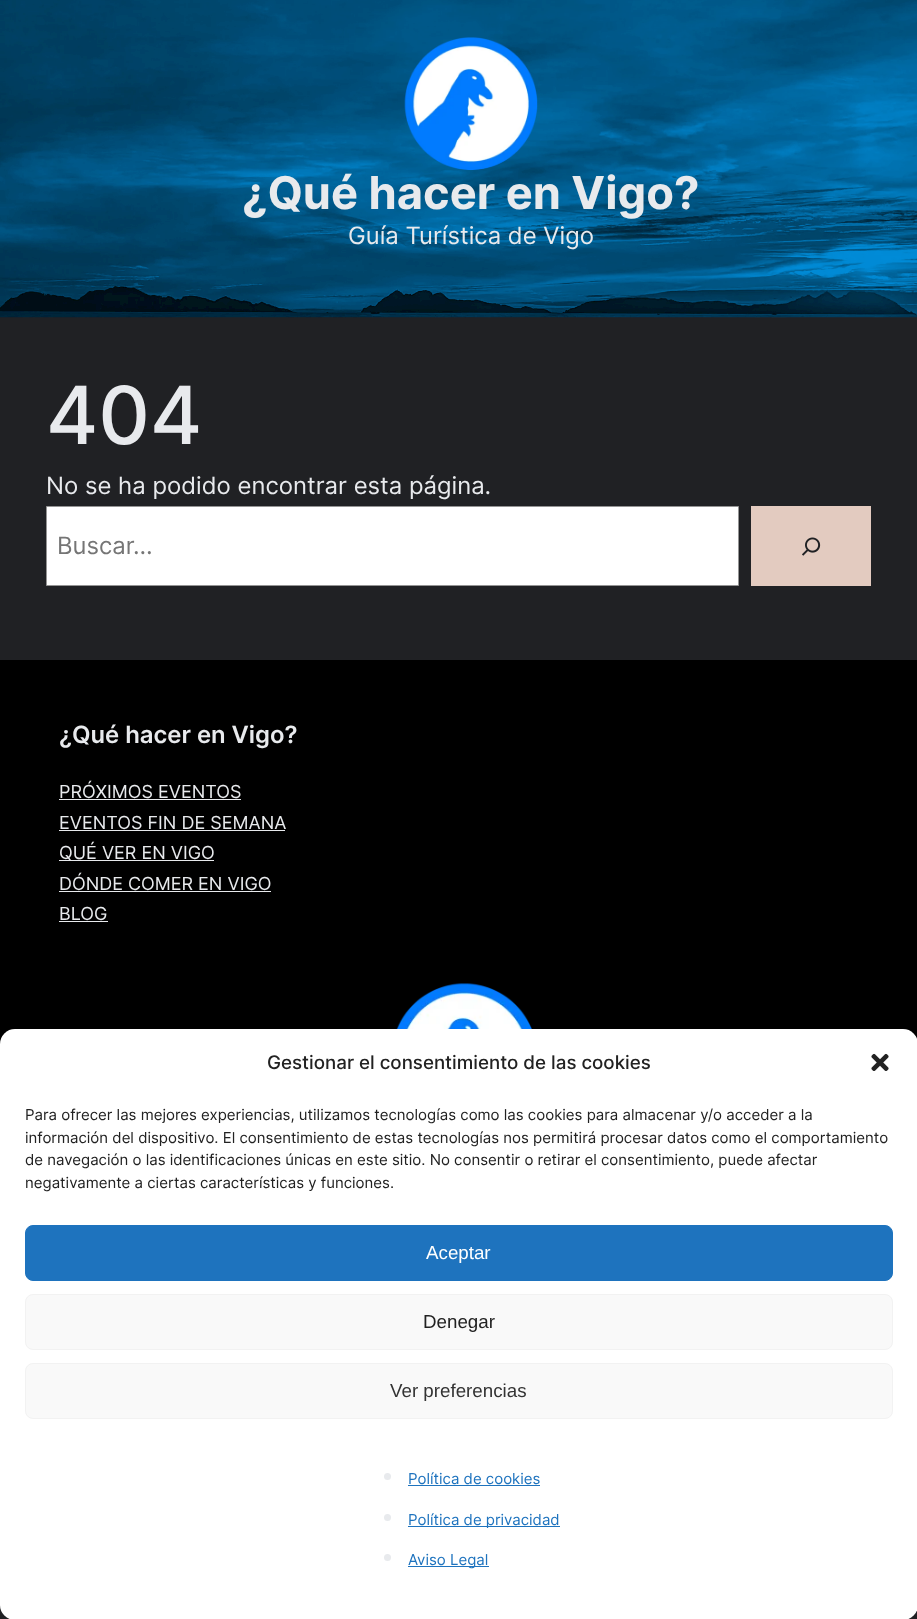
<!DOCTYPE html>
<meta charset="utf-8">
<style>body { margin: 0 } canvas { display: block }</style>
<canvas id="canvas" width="917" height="1619"></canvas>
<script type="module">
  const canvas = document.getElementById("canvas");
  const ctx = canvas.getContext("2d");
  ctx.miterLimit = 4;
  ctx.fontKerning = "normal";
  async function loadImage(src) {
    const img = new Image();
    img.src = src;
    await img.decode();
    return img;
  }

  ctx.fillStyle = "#202124";
  ctx.fillRect(0, 0, 917, 1619);
  ctx.drawImage(await loadImage("img1.png"), 0, 0, 917, 318);
  ctx.drawImage(await loadImage("img2.png"), 404, 37, 134, 133);
  ctx.font = "bold 45.25px Inter";
  ctx.fillStyle = "#e8eaed";
  ctx.fillText("¿Qué hacer en Vigo?", 242, 209);
  ctx.font = "23.9px Inter";
  ctx.fillText("Guía Turística de Vigo", 348, 244);
  ctx.font = "500 80px Inter";
  ctx.fillText("404", 46, 444);
  ctx.font = "23.9px Inter";
  ctx.fillText("No se ha podido encontrar esta página.", 46, 494);
  ctx.fillStyle = "#ffffff";
  ctx.beginPath();
  ctx.rect(46.5, 506.5, 692, 79);
  ctx.fill();
  ctx.strokeStyle = "#949494";
  ctx.stroke();
  ctx.fillStyle = "#757575";
  ctx.fillText("Buscar…", 57, 554);
  ctx.fillStyle = "#e3cbc0";
  ctx.fillRect(751, 506, 120, 80);
  ctx.drawImage(await loadImage("img3.png"), 802, 537, 19, 19);
  ctx.fillStyle = "#000000";
  ctx.fillRect(0, 660, 917, 384);
  ctx.font = "600 23.9px Inter";
  ctx.fillStyle = "#e8eaed";
  ctx.fillText("¿Qué hacer en Vigo?", 59, 743);
  ctx.font = "18px Inter";
  ctx.fillText("PRÓXIMOS EVENTOS", 59, 798);
  ctx.fillRect(59, 799, 182, 1);
  ctx.fillText("EVENTOS FIN DE SEMANA", 59, 829);
  ctx.fillRect(59, 830, 226, 1);
  ctx.fillRect(59, 860, 155, 1);
  ctx.fillText("QUÉ VER EN VIGO", 59, 859);
  ctx.fillText("DÓNDE COMER EN VIGO", 59, 890);
  ctx.fillRect(59, 891, 212, 1);
  ctx.fillText("BLOG", 59, 920);
  ctx.fillRect(59, 921, 49, 1);
  ctx.drawImage(await loadImage("img4.png"), 396, 983, 136, 46);
  ctx.fillStyle = "#ffffff";
  ctx.beginPath();
  ctx.roundRect(0, 1029, 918, 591, 15);
  ctx.fill();
  ctx.font = "500 18.75px Inter";
  ctx.fillStyle = "#222222";
  ctx.fillText("Gestionar el consentimiento de las cookies", 267, 1069);
  ctx.drawImage(await loadImage("img5.png"), 871, 1053, 18, 18);
  ctx.font = "15px Inter";
  ctx.fillText("Para ofrecer las mejores experiencias, utilizamos tecnologías como las cookies para almacenar y/o acceder a la", 25, 1120);
  ctx.fillText("información del dispositivo. El consentimiento de estas tecnologías nos permitirá procesar datos como el comportamiento", 25, 1143);
  ctx.fillText("de navegación o las identificaciones únicas en este sitio. No consentir o retirar el consentimiento, puede afectar", 25, 1165);
  ctx.fillText("negativamente a ciertas características y funciones.", 25, 1188);
  ctx.fillStyle = "#1e73be";
  ctx.beginPath();
  ctx.roundRect(25.5, 1225.5, 867, 55, 7.5);
  ctx.fill();
  ctx.strokeStyle = "#1e73be";
  ctx.stroke();
  ctx.font = "18.75px Liberation Sans";
  ctx.fillStyle = "#ffffff";
  ctx.fillText("Aceptar", 426, 1259);
  ctx.fillStyle = "#f9f9f9";
  ctx.beginPath();
  ctx.roundRect(25.5, 1294.5, 867, 55, 7.5);
  ctx.fill();
  ctx.strokeStyle = "#f2f2f2";
  ctx.stroke();
  ctx.fillStyle = "#222222";
  ctx.fillText("Denegar", 423, 1328);
  ctx.fillStyle = "#f9f9f9";
  ctx.beginPath();
  ctx.roundRect(25.5, 1363.5, 867, 55, 7.5);
  ctx.fill();
  ctx.stroke();
  ctx.fillStyle = "#333333";
  ctx.fillText("Ver preferencias", 390, 1397);
  ctx.fillStyle = "#e8eaed";
  ctx.beginPath();
  ctx.arc(387.5, 1476.5, 3.5, 0, Math.PI * 2);
  ctx.fill();
  ctx.font = "15px Inter";
  ctx.fillStyle = "#1e73be";
  ctx.fillText("Política de cookies", 408, 1484);
  ctx.fillRect(408, 1485, 132, 1);
  ctx.fillStyle = "#e8eaed";
  ctx.beginPath();
  ctx.arc(387.5, 1517.5, 3.5, 0, Math.PI * 2);
  ctx.fill();
  ctx.fillStyle = "#1e73be";
  ctx.fillRect(408, 1526, 152, 1);
  ctx.fillText("Política de privacidad", 408, 1525);
  ctx.fillStyle = "#e8eaed";
  ctx.beginPath();
  ctx.arc(387.5, 1557.5, 3.5, 0, Math.PI * 2);
  ctx.fill();
  ctx.fillStyle = "#1e73be";
  ctx.fillRect(408, 1566, 81, 1);
  ctx.fillText("Aviso Legal", 408, 1565);
</script>
